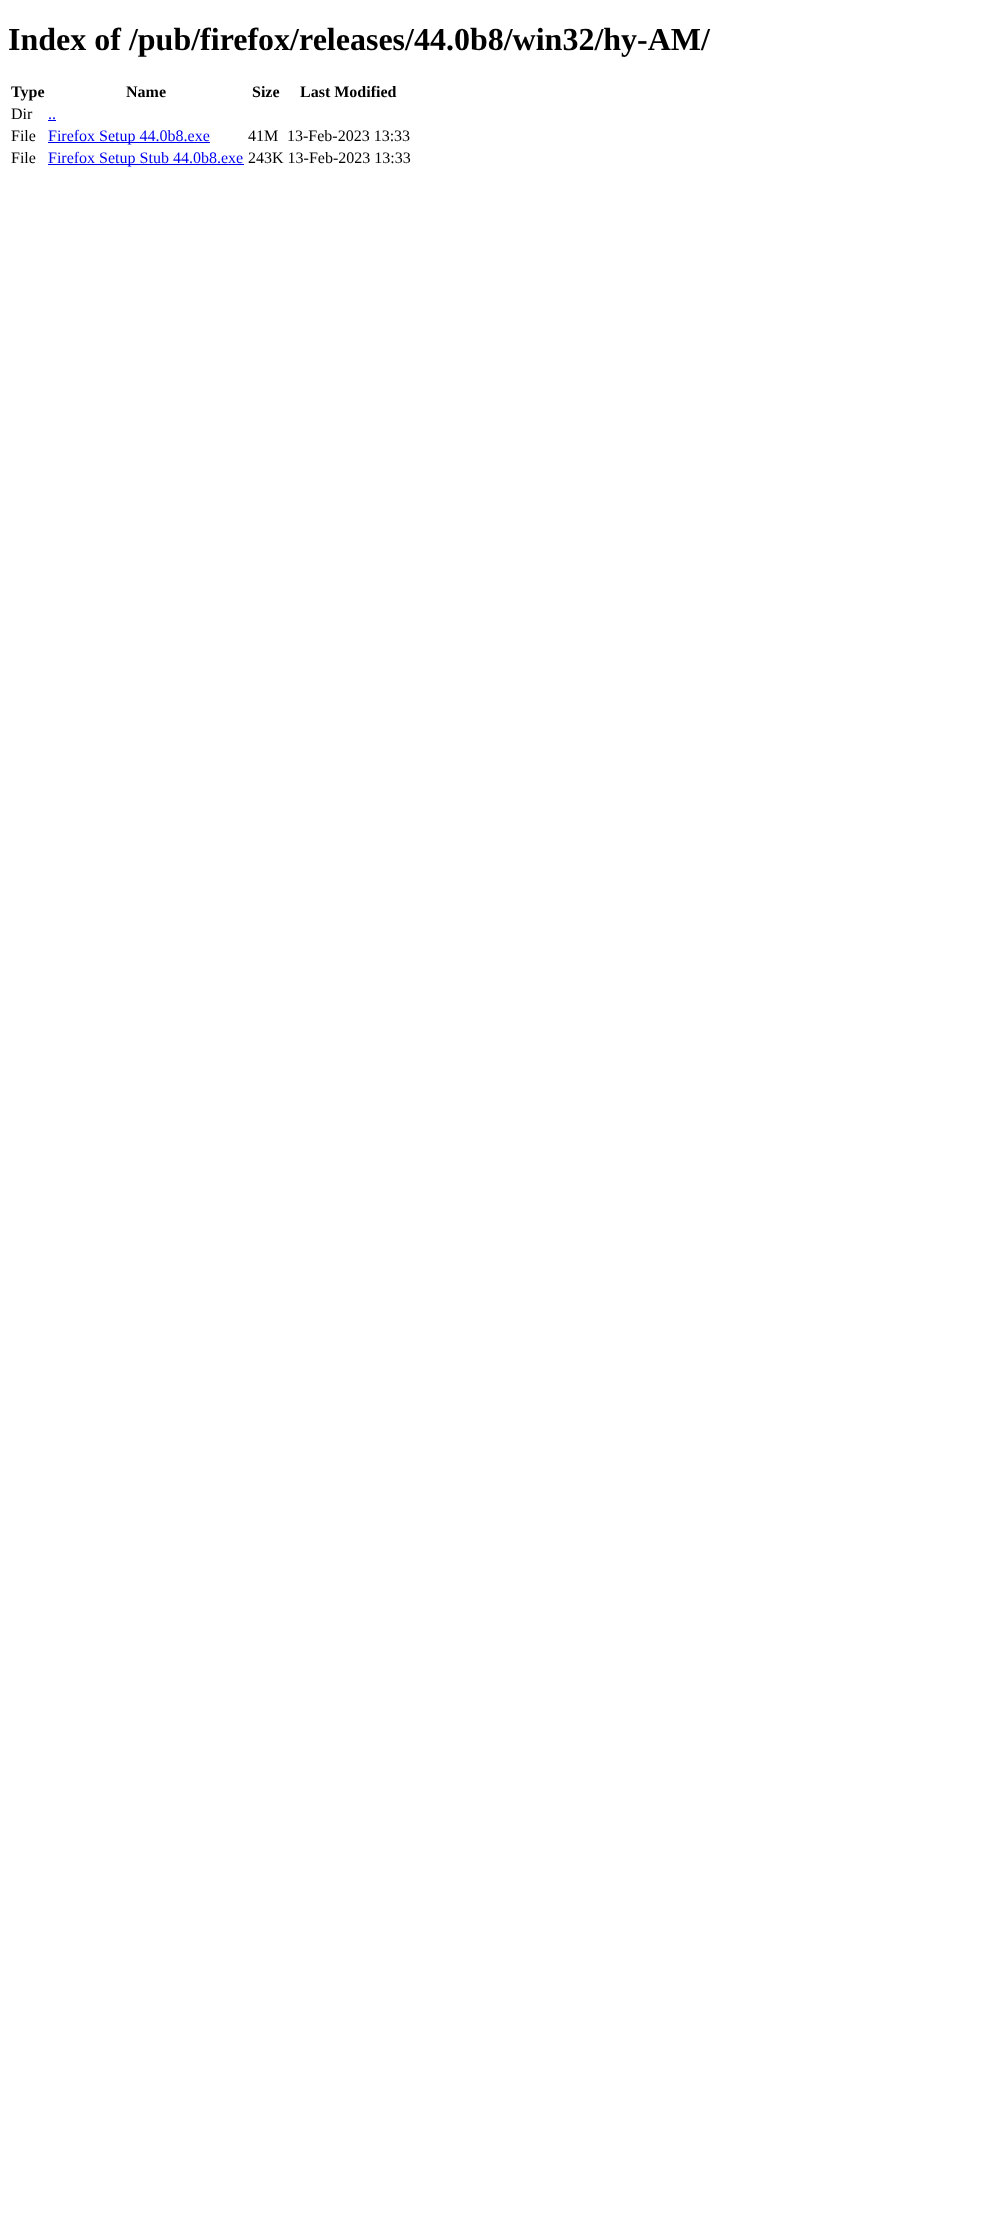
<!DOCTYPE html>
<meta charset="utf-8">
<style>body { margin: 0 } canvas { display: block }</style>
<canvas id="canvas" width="989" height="2224"></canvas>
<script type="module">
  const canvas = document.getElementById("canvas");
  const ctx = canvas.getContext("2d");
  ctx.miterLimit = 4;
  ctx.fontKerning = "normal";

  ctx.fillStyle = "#ffffff";
  ctx.fillRect(0, 0, 989, 2224);
  ctx.font = "bold 32px Liberation Serif";
  ctx.fillStyle = "#000000";
  ctx.fillText("Index of /pub/firefox/releases/44.0b8/win32/hy-AM/", 8, 50);
  ctx.font = "bold 16px Liberation Serif";
  ctx.fillText("Type", 11, 97);
  ctx.fillText("Name", 126, 97);
  ctx.fillText("Size", 252, 97);
  ctx.fillText("Last Modified", 300, 97);
  ctx.font = "16px Liberation Serif";
  ctx.fillText("Dir", 11, 119);
  ctx.fillStyle = "#0000ee";
  ctx.fillText("..", 48, 119);
  ctx.fillRect(48, 120, 8, 1);
  ctx.fillStyle = "#000000";
  ctx.fillText("File", 11, 141);
  ctx.fillStyle = "#0000ee";
  ctx.fillRect(48, 142, 162, 1);
  ctx.fillText("Firefox Setup 44.0b8.exe", 48, 141);
  ctx.fillStyle = "#000000";
  ctx.fillText("41M", 248, 141);
  ctx.fillText("13-Feb-2023 13:33", 287, 141);
  ctx.fillText("File", 11, 163);
  ctx.fillStyle = "#0000ee";
  ctx.fillRect(48, 164, 196, 1);
  ctx.fillText("Firefox Setup Stub 44.0b8.exe", 48, 163);
  ctx.fillStyle = "#000000";
  ctx.fillText("243K 13-Feb-2023 13:33", 248, 163);
</script>
